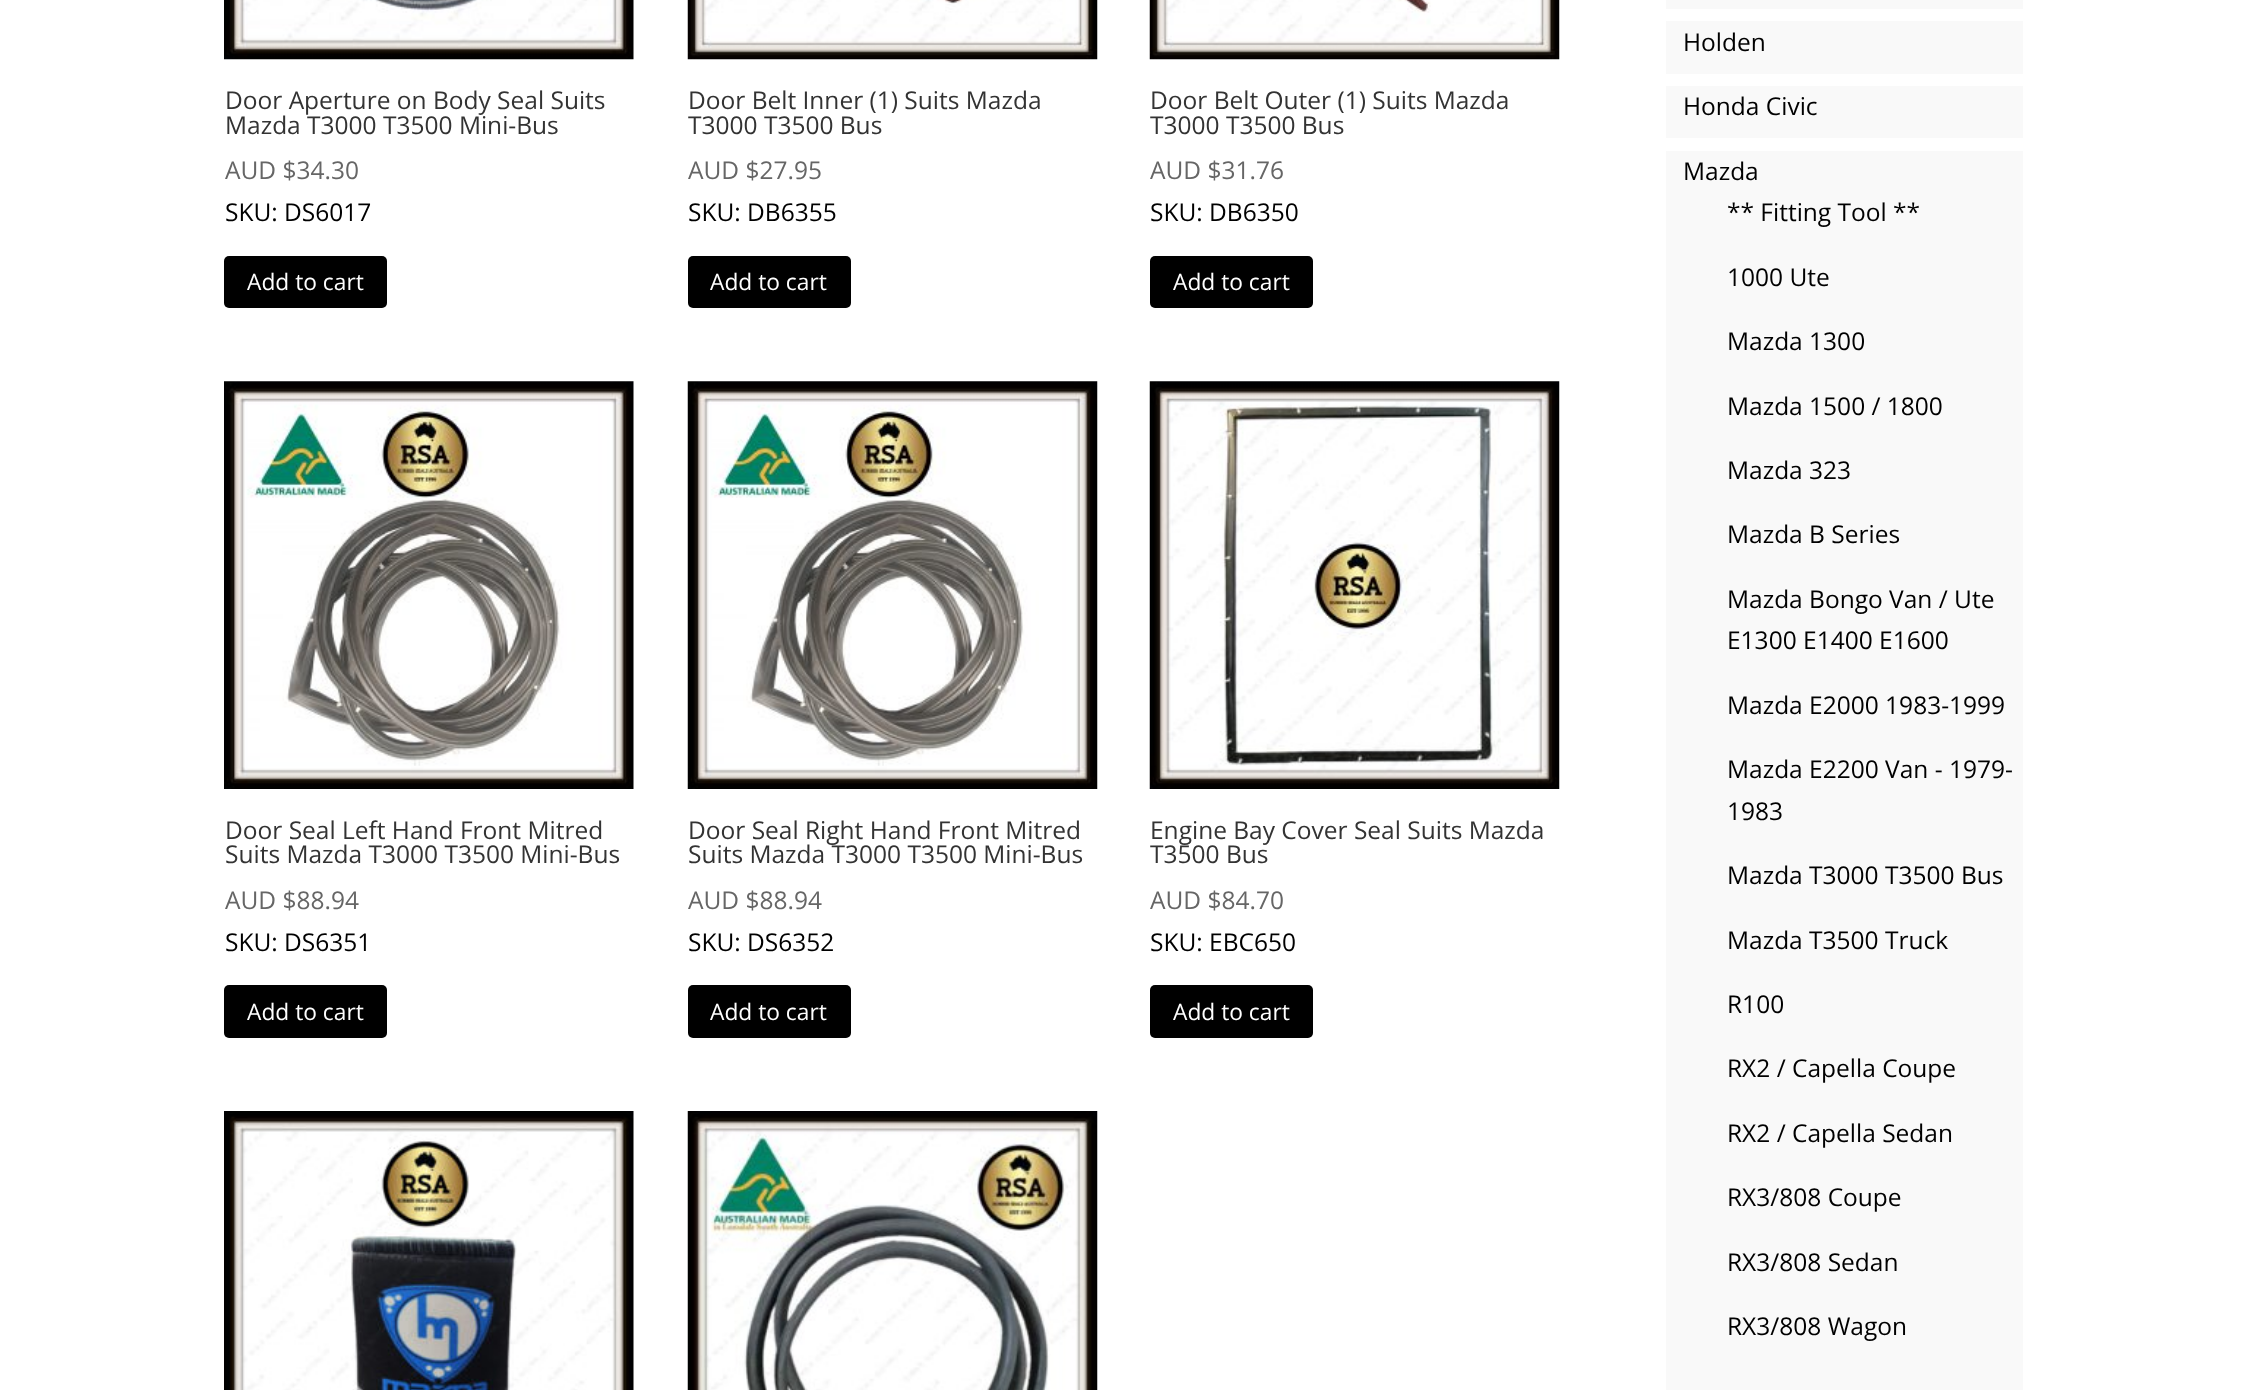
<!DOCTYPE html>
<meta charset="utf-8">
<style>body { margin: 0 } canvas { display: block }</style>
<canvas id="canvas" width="2246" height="1390"></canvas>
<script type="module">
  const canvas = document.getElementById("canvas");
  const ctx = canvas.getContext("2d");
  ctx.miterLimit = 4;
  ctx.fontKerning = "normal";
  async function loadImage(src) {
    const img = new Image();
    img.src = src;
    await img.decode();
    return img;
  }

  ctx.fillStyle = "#ffffff";
  ctx.fillRect(0, 0, 2246, 1390);
  ctx.drawImage(await loadImage("img1.png"), 224, 0, 410, 60);
  ctx.font = "24.5px Open Sans";
  ctx.fillStyle = "#333333";
  ctx.fillText("Door Aperture on Body Seal Suits", 225, 109);
  ctx.fillText("Mazda T3000 T3500 Mini-Bus", 225, 134);
  ctx.fillStyle = "#666666";
  ctx.fillText("AUD $34.30", 225, 179);
  ctx.fillStyle = "#000000";
  ctx.fillText("SKU: DS6017", 225, 221);
  ctx.beginPath();
  ctx.roundRect(224, 256, 163, 52, 5);
  ctx.fill();
  ctx.font = "22.75px Open Sans";
  ctx.fillStyle = "#ffffff";
  ctx.fillText("Add to cart", 247, 290);
  ctx.drawImage(await loadImage("img2.png"), 687, 0, 411, 60);
  ctx.font = "24.5px Open Sans";
  ctx.fillStyle = "#333333";
  ctx.fillText("Door Belt Inner (1) Suits Mazda", 688, 109);
  ctx.fillText("T3000 T3500 Bus", 688, 134);
  ctx.fillStyle = "#666666";
  ctx.fillText("AUD $27.95", 688, 179);
  ctx.fillStyle = "#000000";
  ctx.fillText("SKU: DB6355", 688, 221);
  ctx.beginPath();
  ctx.roundRect(688, 256, 163, 52, 5);
  ctx.fill();
  ctx.font = "22.75px Open Sans";
  ctx.fillStyle = "#ffffff";
  ctx.fillText("Add to cart", 710, 290);
  ctx.drawImage(await loadImage("img3.png"), 1149, 0, 411, 60);
  ctx.font = "24.5px Open Sans";
  ctx.fillStyle = "#333333";
  ctx.fillText("Door Belt Outer (1) Suits Mazda", 1150, 109);
  ctx.fillText("T3000 T3500 Bus", 1150, 134);
  ctx.fillStyle = "#666666";
  ctx.fillText("AUD $31.76", 1150, 179);
  ctx.fillStyle = "#000000";
  ctx.fillText("SKU: DB6350", 1150, 221);
  ctx.beginPath();
  ctx.roundRect(1150, 256, 163, 52, 5);
  ctx.fill();
  ctx.font = "22.75px Open Sans";
  ctx.fillStyle = "#ffffff";
  ctx.fillText("Add to cart", 1173, 290);
  ctx.drawImage(await loadImage("img4.png"), 224, 381, 410, 408);
  ctx.font = "24.5px Open Sans";
  ctx.fillStyle = "#333333";
  ctx.fillText("Door Seal Left Hand Front Mitred", 225, 839);
  ctx.fillText("Suits Mazda T3000 T3500 Mini-Bus", 225, 863);
  ctx.fillStyle = "#666666";
  ctx.fillText("AUD $88.94", 225, 909);
  ctx.fillStyle = "#000000";
  ctx.fillText("SKU: DS6351", 225, 951);
  ctx.beginPath();
  ctx.roundRect(224, 985, 163, 53, 5);
  ctx.fill();
  ctx.font = "22.75px Open Sans";
  ctx.fillStyle = "#ffffff";
  ctx.fillText("Add to cart", 247, 1020);
  ctx.drawImage(await loadImage("img5.png"), 687, 381, 411, 408);
  ctx.font = "24.5px Open Sans";
  ctx.fillStyle = "#333333";
  ctx.fillText("Door Seal Right Hand Front Mitred", 688, 839);
  ctx.fillText("Suits Mazda T3000 T3500 Mini-Bus", 688, 863);
  ctx.fillStyle = "#666666";
  ctx.fillText("AUD $88.94", 688, 909);
  ctx.fillStyle = "#000000";
  ctx.fillText("SKU: DS6352", 688, 951);
  ctx.beginPath();
  ctx.roundRect(688, 985, 163, 53, 5);
  ctx.fill();
  ctx.font = "22.75px Open Sans";
  ctx.fillStyle = "#ffffff";
  ctx.fillText("Add to cart", 710, 1020);
  ctx.drawImage(await loadImage("img6.png"), 1149, 381, 411, 408);
  ctx.font = "24.5px Open Sans";
  ctx.fillStyle = "#333333";
  ctx.fillText("Engine Bay Cover Seal Suits Mazda", 1150, 839);
  ctx.fillText("T3500 Bus", 1150, 863);
  ctx.fillStyle = "#666666";
  ctx.fillText("AUD $84.70", 1150, 909);
  ctx.fillStyle = "#000000";
  ctx.fillText("SKU: EBC650", 1150, 951);
  ctx.beginPath();
  ctx.roundRect(1150, 985, 163, 53, 5);
  ctx.fill();
  ctx.font = "22.75px Open Sans";
  ctx.fillStyle = "#ffffff";
  ctx.fillText("Add to cart", 1173, 1020);
  ctx.drawImage(await loadImage("img7.png"), 224, 1111, 410, 279);
  ctx.drawImage(await loadImage("img8.png"), 687, 1111, 411, 279);
  ctx.fillStyle = "#f9f9f9";
  ctx.fillRect(1666, 0, 357, 9);
  ctx.fillRect(1666, 21, 357, 53);
  ctx.font = "24.5px Open Sans";
  ctx.fillStyle = "#000000";
  ctx.fillText("Holden", 1683, 51);
  ctx.fillStyle = "#f9f9f9";
  ctx.fillRect(1666, 86, 357, 52);
  ctx.fillStyle = "#000000";
  ctx.fillText("Honda Civic", 1683, 115);
  ctx.fillStyle = "#f9f9f9";
  ctx.fillRect(1666, 151, 357, 1239);
  ctx.fillStyle = "#000000";
  ctx.fillText("Mazda", 1683, 180);
  ctx.fillText("** Fitting Tool **", 1727, 221);
  ctx.fillText("1000 Ute", 1727, 286);
  ctx.fillText("Mazda 1300", 1727, 350);
  ctx.fillText("Mazda 1500 / 1800", 1727, 415);
  ctx.fillText("Mazda 323", 1727, 479);
  ctx.fillText("Mazda B Series", 1727, 543);
  ctx.fillText("Mazda Bongo Van / Ute", 1727, 608);
  ctx.fillText("E1300 E1400 E1600", 1727, 649);
  ctx.fillText("Mazda E2000 1983-1999", 1727, 714);
  ctx.fillText("Mazda E2200 Van - 1979-", 1727, 778);
  ctx.fillText("1983", 1727, 820);
  ctx.fillText("Mazda T3000 T3500 Bus", 1727, 884);
  ctx.fillText("Mazda T3500 Truck", 1727, 949);
  ctx.fillText("R100", 1727, 1013);
  ctx.fillText("RX2 / Capella Coupe", 1727, 1077);
  ctx.fillText("RX2 / Capella Sedan", 1727, 1142);
  ctx.fillText("RX3/808 Coupe", 1727, 1206);
  ctx.fillText("RX3/808 Sedan", 1727, 1271);
  ctx.fillText("RX3/808 Wagon", 1727, 1335);
</script>
